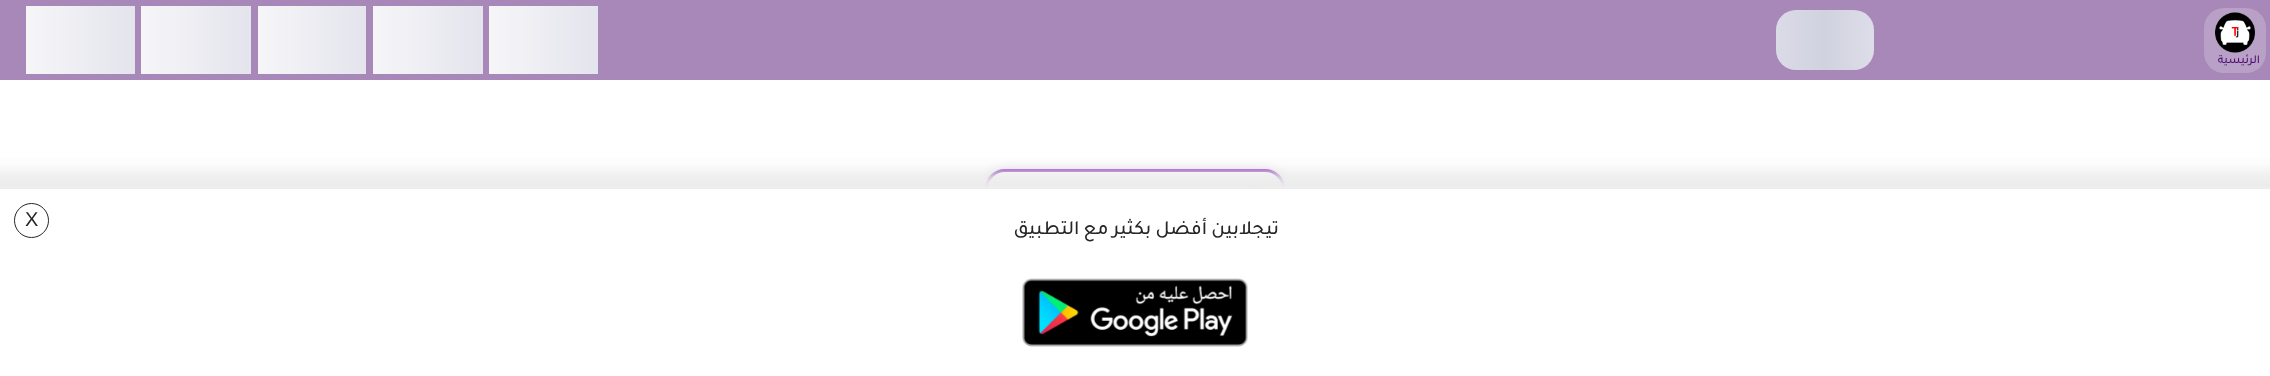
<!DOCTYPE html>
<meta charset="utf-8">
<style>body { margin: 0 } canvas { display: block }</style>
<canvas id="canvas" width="2270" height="376"></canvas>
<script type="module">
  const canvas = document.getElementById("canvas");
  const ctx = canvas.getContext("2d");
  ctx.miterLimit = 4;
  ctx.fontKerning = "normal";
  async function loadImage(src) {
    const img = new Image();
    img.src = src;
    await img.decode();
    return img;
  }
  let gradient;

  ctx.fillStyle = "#ffffff";
  ctx.fillRect(0, 0, 2270, 376);
  ctx.fillStyle = "#a788b8";
  ctx.fillRect(0, 0, 2270, 80);
  ctx.fillStyle = "#b9a0c6";
  ctx.beginPath();
  ctx.roundRect(2204, 8, 62, 65, 20);
  ctx.fill();
  ctx.drawImage(await loadImage("img1.png"), 2215, 12, 40, 41);
  ctx.letterSpacing = "0.5px";
  ctx.direction = "rtl";
  ctx.font = "500 12px Tajawal";
  ctx.fillStyle = "#4e1070";
  ctx.fillText("الرئيسية", 2260, 63);
  gradient = ctx.createLinearGradient(2020, 40, 1630, 40);
  gradient.addColorStop(0, "#ffffff");
  gradient.addColorStop(0.5, "#d1d2e0");
  gradient.addColorStop(1, "#f6f6f9");
  ctx.fillStyle = gradient;
  ctx.beginPath();
  ctx.roundRect(1776, 10, 98, 60, 20);
  ctx.fill();
  gradient = ctx.createLinearGradient(924, 40, 489, 40);
  gradient.addColorStop(0, "#ffffff");
  gradient.addColorStop(0.5, "#d1d2e0");
  gradient.addColorStop(1, "#f6f6f9");
  ctx.fillStyle = gradient;
  ctx.fillRect(489, 6, 109, 68);
  gradient = ctx.createLinearGradient(813, 40, 373, 40);
  gradient.addColorStop(0, "#ffffff");
  gradient.addColorStop(0.5, "#d1d2e0");
  gradient.addColorStop(1, "#f6f6f9");
  ctx.fillStyle = gradient;
  ctx.fillRect(373, 6, 110, 68);
  gradient = ctx.createLinearGradient(693, 40, 258, 40);
  gradient.addColorStop(0, "#ffffff");
  gradient.addColorStop(0.5, "#d1d2e0");
  gradient.addColorStop(1, "#f6f6f9");
  ctx.fillStyle = gradient;
  ctx.fillRect(258, 6, 108, 68);
  gradient = ctx.createLinearGradient(581, 40, 141, 40);
  gradient.addColorStop(0, "#ffffff");
  gradient.addColorStop(0.5, "#d1d2e0");
  gradient.addColorStop(1, "#f6f6f9");
  ctx.fillStyle = gradient;
  ctx.fillRect(141, 6, 110, 68);
  gradient = ctx.createLinearGradient(461, 40, 26, 40);
  gradient.addColorStop(0, "#ffffff");
  gradient.addColorStop(0.5, "#d1d2e0");
  gradient.addColorStop(1, "#f6f6f9");
  ctx.fillStyle = gradient;
  ctx.fillRect(26, 6, 109, 68);
  ctx.fillStyle = "rgba(78, 16, 112, 0.18)";
  ctx.filter = "blur(4px)";
  ctx.beginPath();
  ctx.roundRect(985, 169, 300, 65, 20);
  ctx.fill();
  ctx.filter = "none";
  ctx.fillStyle = "#ffffff";
  ctx.beginPath();
  ctx.roundRect(985, 169, 300, 65, 20);
  ctx.fill();
  ctx.drawImage(await loadImage("img2.png"), 1246, 186, 15, 3);
  ctx.beginPath();
  ctx.roundRect(986.5, 170.5, 297, 62, 18.5);
  ctx.strokeStyle = "#7d1ab3";
  ctx.lineWidth = 3;
  ctx.stroke();
  ctx.fillStyle = "#ececec";
  ctx.filter = "blur(8px)";
  ctx.beginPath();
  ctx.rect(-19, 170, 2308, 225);
  ctx.fill();
  ctx.filter = "none";
  ctx.fillStyle = "#ffffff";
  ctx.fillRect(0, 189, 2270, 187);
  ctx.wordSpacing = "-1px";
  ctx.font = "500 20px Tajawal";
  ctx.fillStyle = "#252627";
  ctx.fillText("تيجلابين أفضل بكثير مع التطبيق", 1279, 234);
  ctx.beginPath();
  ctx.arc(31.5, 220.5, 17, 0, Math.PI * 2);
  ctx.strokeStyle = "#252627";
  ctx.lineWidth = 1;
  ctx.stroke();
  ctx.wordSpacing = "0px";
  ctx.direction = "ltr";
  ctx.font = "20px Liberation Sans";
  ctx.fillText("X", 25, 226);
  ctx.drawImage(await loadImage("img3.png"), 1022, 278, 226, 69);
</script>
